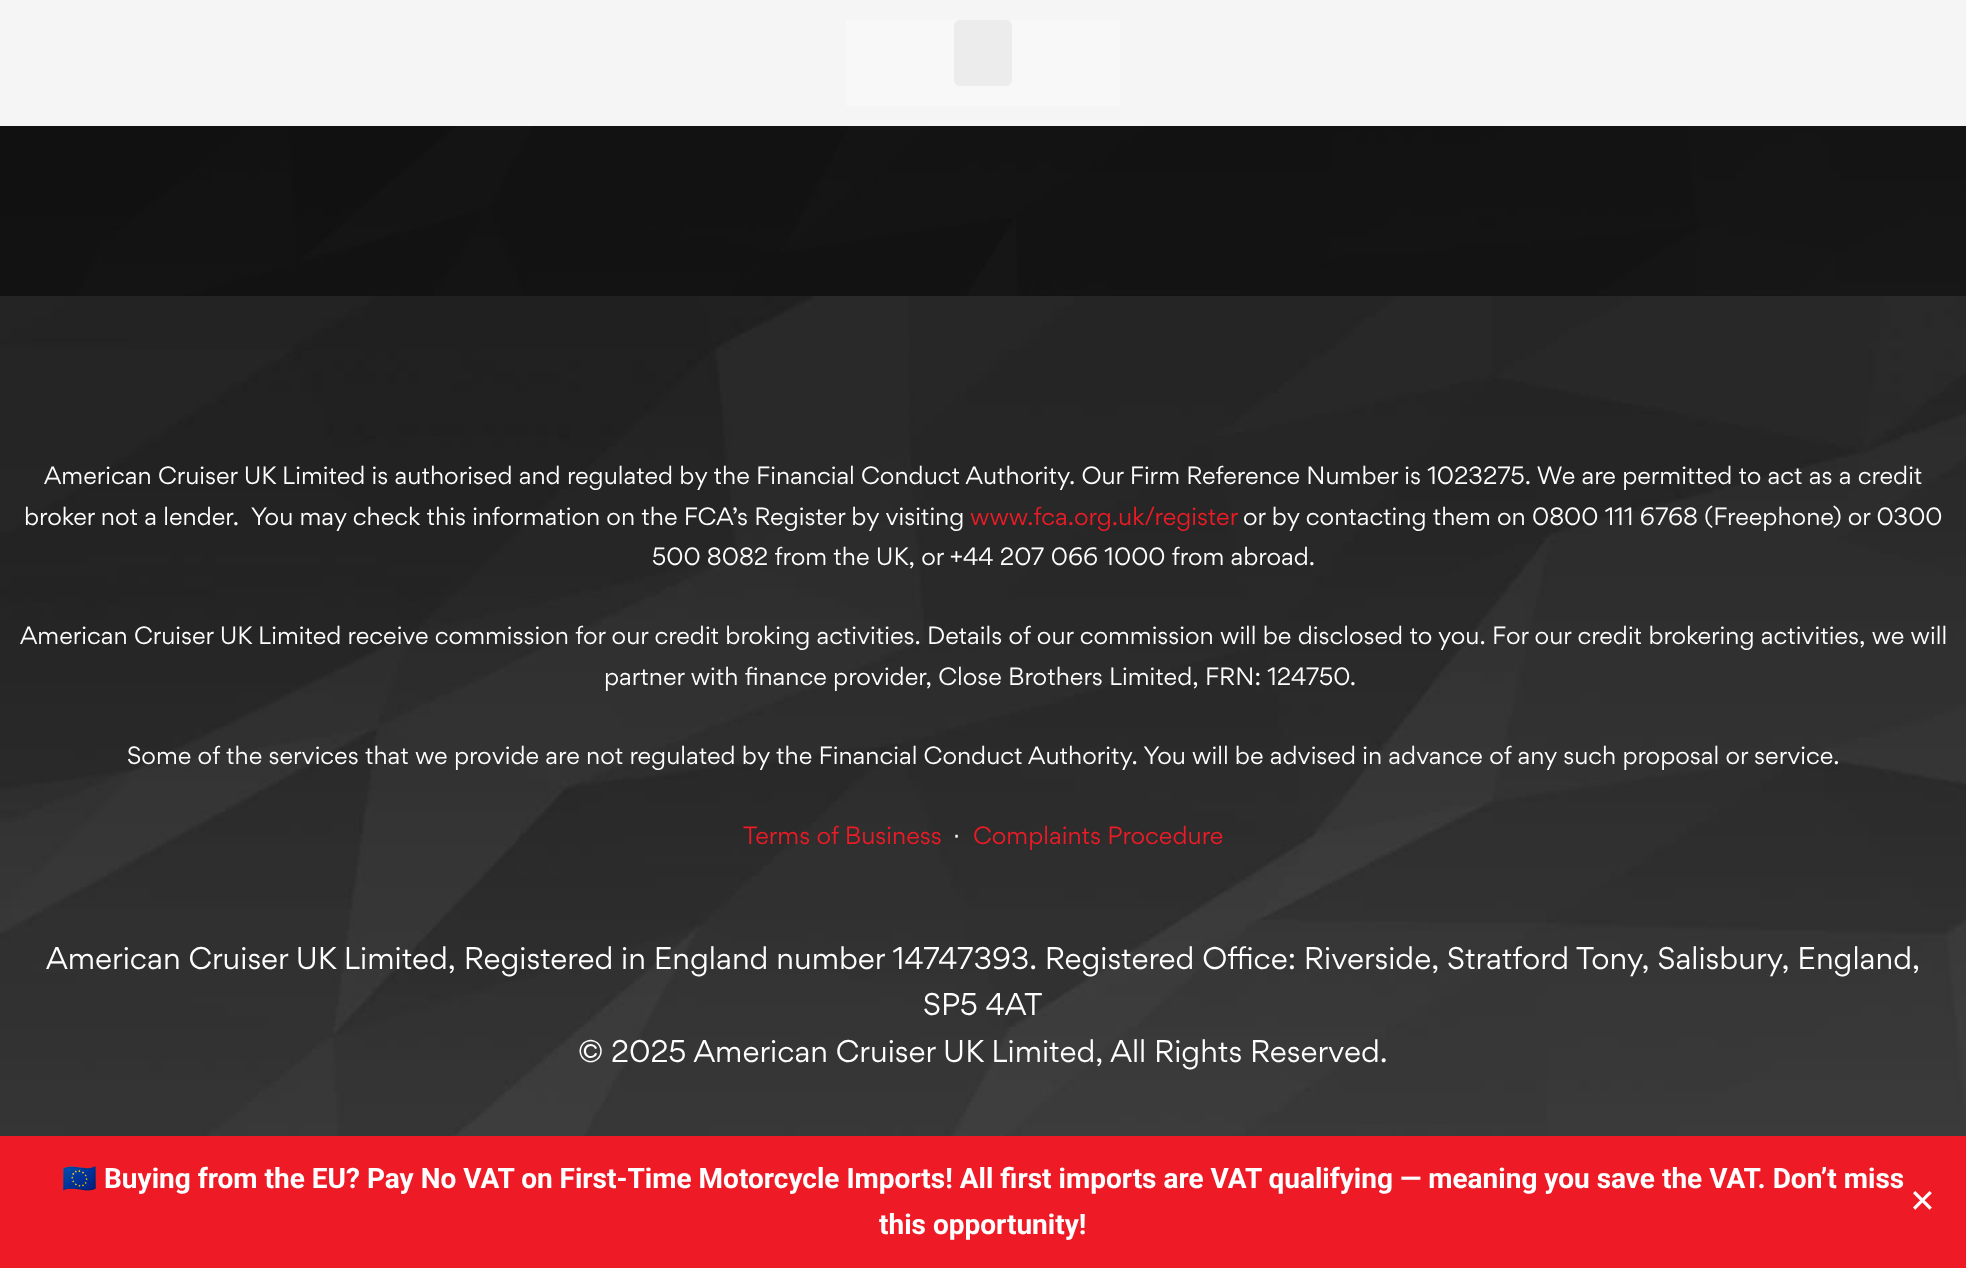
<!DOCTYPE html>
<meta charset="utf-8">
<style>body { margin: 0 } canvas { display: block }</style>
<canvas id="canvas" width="1966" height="1268"></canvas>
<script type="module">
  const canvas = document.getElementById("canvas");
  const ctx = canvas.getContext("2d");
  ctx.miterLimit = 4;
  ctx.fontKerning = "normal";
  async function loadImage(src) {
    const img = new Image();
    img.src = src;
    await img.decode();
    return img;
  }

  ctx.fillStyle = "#ffffff";
  ctx.fillRect(0, 0, 1966, 1268);
  ctx.fillStyle = "#f5f5f5";
  ctx.fillRect(0, 0, 1966, 126);
  ctx.fillStyle = "#f8f8f8";
  ctx.fillRect(846, 20, 274, 86);
  ctx.fillStyle = "#ececec";
  ctx.beginPath();
  ctx.roundRect(954, 20, 58, 66, 6);
  ctx.fill();
  ctx.drawImage(await loadImage("img1.png"), 0, 126, 1966, 170);
  ctx.drawImage(await loadImage("img2.png"), 0, 296, 1966, 840);
  ctx.font = "22.4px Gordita";
  ctx.fillStyle = "#ffffff";
  ctx.fillText("American Cruiser UK Limited is authorised and regulated by the Financial Conduct Authority. Our Firm Reference Number is 1023275. We are permitted to act as a credit", 44, 484);
  ctx.fillText("broker not a lender.  You may check this information on the FCA’s Register by visiting", 24, 525);
  ctx.fillStyle = "#ee1b26";
  ctx.fillText("www.fca.org.uk/register", 970, 525);
  ctx.fillStyle = "#ffffff";
  ctx.fillText("or by contacting them on 0800 111 6768 (Freephone) or 0300", 1243, 525);
  ctx.fillText("500 8082 from the UK, or +44 207 066 1000 from abroad.", 652, 565);
  ctx.fillText("American Cruiser UK Limited receive commission for our credit broking activities. Details of our commission will be disclosed to you. For our credit brokering activities, we will", 20, 644);
  ctx.fillText("partner with finance provider, Close Brothers Limited, FRN: 124750.", 604, 685);
  ctx.fillText("Some of the services that we provide are not regulated by the Financial Conduct Authority. You will be advised in advance of any such proposal or service.", 127, 764);
  ctx.fillStyle = "#ee1b26";
  ctx.fillText("Terms of Business", 743, 844);
  ctx.font = "22.4px DejaVu Sans";
  ctx.fillStyle = "#ffffff";
  ctx.fillText("⋅", 953, 844);
  ctx.font = "22.4px Gordita";
  ctx.fillStyle = "#ee1b26";
  ctx.fillText("Complaints Procedure", 973, 844);
  ctx.font = "28px Gordita";
  ctx.fillStyle = "#ffffff";
  ctx.fillText("American Cruiser UK Limited, Registered in England number 14747393. Registered Office: Riverside, Stratford Tony, Salisbury, England,", 46, 969);
  ctx.fillText("SP5 4AT", 923, 1015);
  ctx.fillText("© 2025 American Cruiser UK Limited, All Rights Reserved.", 578, 1062);
  ctx.fillStyle = "#ee1b26";
  ctx.fillRect(0, 1136, 1966, 132);
  ctx.font = "bold 28px Noto Color Emoji";
  ctx.fillStyle = "#ffffff";
  ctx.fillText("🇪🇺", 62, 1188);
  ctx.font = "bold 28px Roboto";
  ctx.fillText("Buying from the EU? Pay No VAT on First-Time Motorcycle Imports! All first imports are VAT qualifying — meaning you save the VAT. Don’t miss", 104, 1188);
  ctx.fillText("this opportunity!", 879, 1234);
  ctx.font = "32px DejaVu Sans";
  ctx.fillText("✕", 1909, 1212);
</script>
